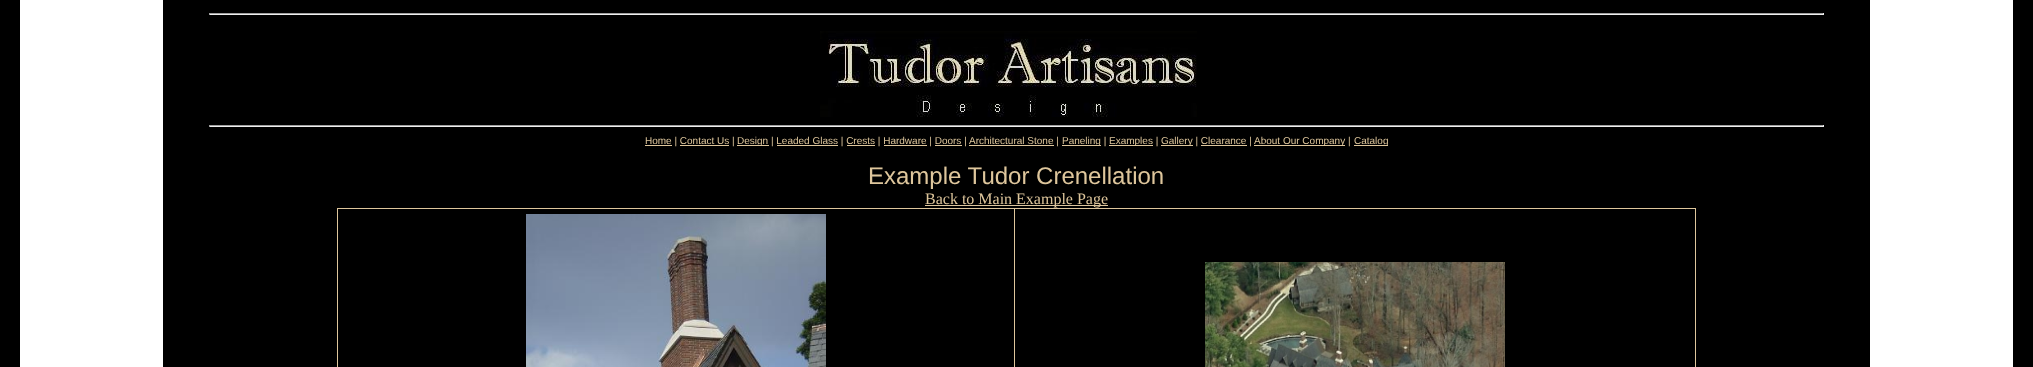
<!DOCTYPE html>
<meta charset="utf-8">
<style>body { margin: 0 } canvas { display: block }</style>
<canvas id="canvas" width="2033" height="367"></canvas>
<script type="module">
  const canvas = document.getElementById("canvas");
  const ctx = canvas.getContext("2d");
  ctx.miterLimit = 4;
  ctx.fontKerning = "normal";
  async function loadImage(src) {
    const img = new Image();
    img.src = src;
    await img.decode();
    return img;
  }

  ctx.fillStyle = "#000000";
  ctx.fillRect(0, 0, 2033, 367);
  ctx.fillStyle = "#ffffff";
  ctx.fillRect(20, 0, 143, 367);
  ctx.fillStyle = "#9f9f9f";
  ctx.fillRect(209, 13, 1615, 1);
  ctx.fillStyle = "#eeeeee";
  ctx.fillRect(1823, 13, 1, 2);
  ctx.fillRect(209, 14, 1615, 1);
  ctx.fillStyle = "#9f9f9f";
  ctx.fillRect(209, 13, 1, 2);
  ctx.drawImage(await loadImage("img1.png"), 820, 31, 377, 86);
  ctx.fillRect(209, 125, 1615, 1);
  ctx.fillStyle = "#eeeeee";
  ctx.fillRect(1823, 125, 1, 2);
  ctx.fillRect(209, 126, 1615, 1);
  ctx.fillStyle = "#9f9f9f";
  ctx.fillRect(209, 125, 1, 2);
  ctx.fillStyle = "#dec69c";
  ctx.fillRect(645, 145, 27, 1);
  ctx.font = "10px Liberation Sans";
  ctx.fillText("Home | Contact Us |", 645, 144);
  ctx.fillRect(737, 145, 32, 1);
  ctx.fillText("Design | Leaded Glass | Crests | Hardware | Doors | Architectural Stone |", 737, 144);
  ctx.fillRect(1062, 145, 39, 1);
  ctx.fillText("Paneling |", 1062, 144);
  ctx.fillRect(1109, 145, 44, 1);
  ctx.fillText("Examples |", 1109, 144);
  ctx.fillRect(1161, 145, 32, 1);
  ctx.fillText("Gallery | Clearance |", 1161, 144);
  ctx.fillRect(1254, 145, 91, 1);
  ctx.fillText("About Our Company |", 1254, 144);
  ctx.fillRect(1354, 145, 34, 1);
  ctx.fillText("Catalog", 1354, 144);
  ctx.fillRect(680, 145, 49, 1);
  ctx.fillRect(777, 145, 61, 1);
  ctx.fillRect(847, 145, 28, 1);
  ctx.fillRect(884, 145, 43, 1);
  ctx.fillRect(935, 145, 27, 1);
  ctx.fillRect(969, 145, 85, 1);
  ctx.fillRect(1201, 145, 46, 1);
  ctx.font = "24px Liberation Sans";
  ctx.fillText("Example Tudor Crenellation", 868, 184);
  ctx.fillRect(925, 205, 183, 1);
  ctx.font = "16px Liberation Serif";
  ctx.fillText("Back to Main Example Page", 925, 204);
  ctx.fillRect(337, 208, 1359, 1);
  ctx.fillRect(1695, 208, 1, 159);
  ctx.fillRect(337, 208, 1, 159);
  ctx.drawImage(await loadImage("img2.png"), 526, 214, 300, 153);
  ctx.fillRect(1014, 208, 1, 159);
  ctx.drawImage(await loadImage("img3.png"), 1205, 262, 300, 105);
  ctx.fillStyle = "#ffffff";
  ctx.fillRect(1870, 0, 143, 367);
</script>
